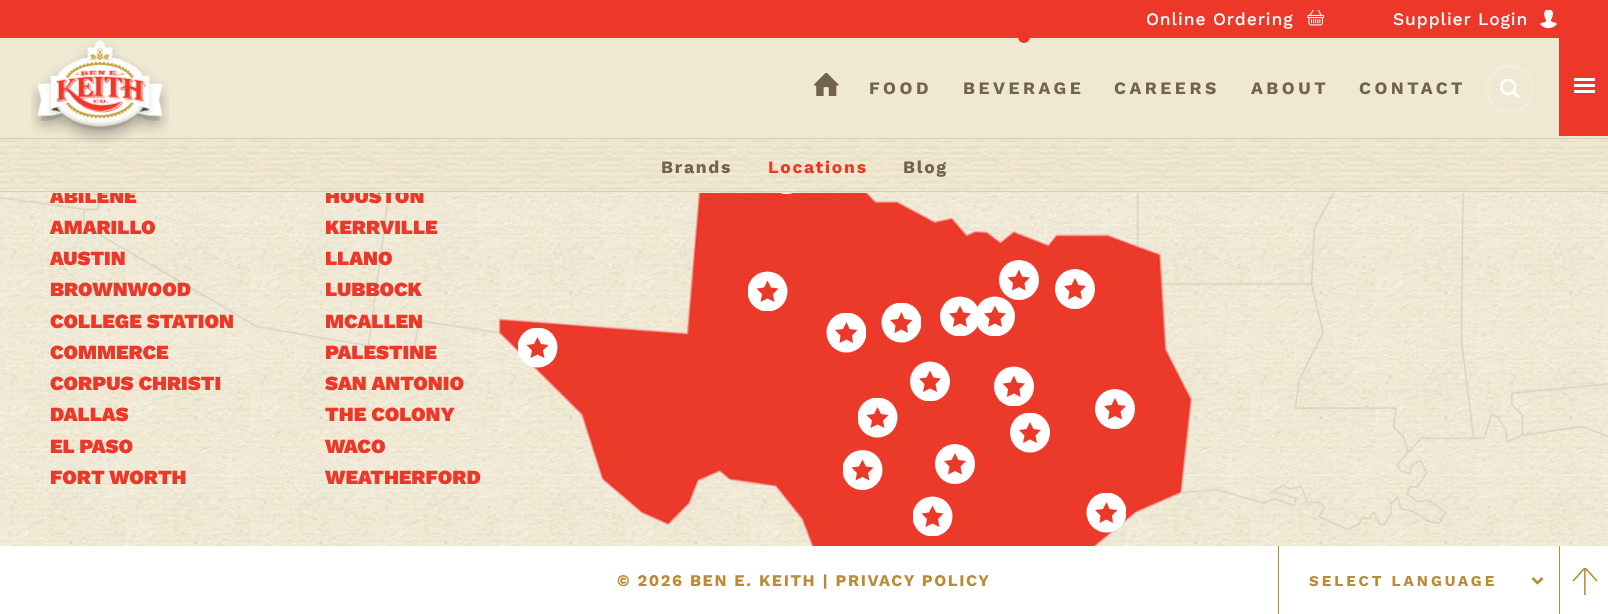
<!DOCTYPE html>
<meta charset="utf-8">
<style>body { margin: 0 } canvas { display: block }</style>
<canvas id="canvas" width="1608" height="614"></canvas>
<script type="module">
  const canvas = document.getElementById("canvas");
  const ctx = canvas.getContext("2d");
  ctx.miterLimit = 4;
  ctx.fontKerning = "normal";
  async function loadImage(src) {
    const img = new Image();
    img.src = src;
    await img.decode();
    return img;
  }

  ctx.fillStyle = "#ffffff";
  ctx.fillRect(0, 0, 1608, 614);
  ctx.fillStyle = "#efe8d2";
  ctx.fillRect(0, 38, 1608, 100);
  ctx.fillStyle = "#ec3729";
  ctx.beginPath();
  ctx.roundRect(1018, 30, 12, 13, 6);
  ctx.fill();
  ctx.fillRect(0, 0, 1608, 38);
  ctx.letterSpacing = "0.9px";
  ctx.font = "500 17.5px Work Sans";
  ctx.fillStyle = "#ffffff";
  ctx.fillText("Online Ordering", 1146, 25);
  ctx.drawImage(await loadImage("img1.png"), 1307, 10, 18, 16);
  ctx.fillText("Supplier Login", 1393, 25);
  ctx.drawImage(await loadImage("img2.png"), 1540, 10, 17, 19);
  ctx.drawImage(await loadImage("img7.png"), 0, 193, 1608, 353);
  ctx.drawImage(await loadImage("img8.png"), 0, 193, 1608, 353);
  ctx.beginPath();
  ctx.arc(786.5, 174, 20, 0, Math.PI * 2);
  ctx.fill();
  ctx.letterSpacing = "0px";
  ctx.font = "900 20px Work Sans";
  ctx.fillStyle = "#ec3729";
  ctx.fillText("ABILENE", 50, 203);
  ctx.fillText("HOUSTON", 325, 203);
  ctx.drawImage(await loadImage("img6.png"), 0, 139, 1608, 54);
  ctx.fillStyle = "#d8ceb7";
  ctx.fillRect(0, 138, 1608, 1);
  ctx.drawImage(await loadImage("img3.png"), 31, 40, 138, 104);
  ctx.drawImage(await loadImage("img4.png"), 814, 73, 25, 23);
  ctx.letterSpacing = "3.5px";
  ctx.font = "bold 17.5px Work Sans";
  ctx.fillStyle = "#73624d";
  ctx.fillText("FOOD", 869, 94);
  ctx.fillText("BEVERAGE", 963, 94);
  ctx.fillText("CAREERS", 1114, 94);
  ctx.fillText("ABOUT", 1251, 94);
  ctx.fillText("CONTACT", 1359, 94);
  ctx.drawImage(await loadImage("img5.png"), 1500, 78, 20, 21);
  ctx.beginPath();
  ctx.moveTo(1510, 66.5);
  ctx.bezierCurveTo(1539.5, 66.5, 1539.5, 111, 1510, 111);
  ctx.bezierCurveTo(1480.5, 111, 1480.5, 66.5, 1510, 66.5);
  ctx.moveTo(1510, 65.5);
  ctx.bezierCurveTo(1479.5, 65.5, 1479.5, 112, 1510, 112);
  ctx.bezierCurveTo(1540.5, 112, 1540.5, 65.5, 1510, 65.5);
  ctx.closePath();
  ctx.strokeStyle = "#f2eddb";
  ctx.lineWidth = 1.9;
  ctx.stroke();
  ctx.fillStyle = "#ec3729";
  ctx.fillRect(1559, 38, 49, 98);
  ctx.fillStyle = "#ffffff";
  ctx.fillRect(1574, 78, 21, 3);
  ctx.fillRect(1574, 84, 21, 3);
  ctx.fillRect(1574, 90, 21, 3);
  ctx.fillStyle = "#d8ceb7";
  ctx.fillRect(0, 191, 1608, 1);
  ctx.letterSpacing = "1.75px";
  ctx.fillStyle = "#73624d";
  ctx.fillText("Brands", 661, 173);
  ctx.fillStyle = "#ec3729";
  ctx.fillText("Locations", 768, 173);
  ctx.fillStyle = "#73624d";
  ctx.fillText("Blog", 903, 173);
  ctx.save();
  ctx.beginPath();
  ctx.rect(748, 271, 40, 40);
  ctx.clip();
  ctx.fillStyle = "#ffffff";
  ctx.beginPath();
  ctx.arc(767.5, 291.5, 20, 0, Math.PI * 2);
  ctx.fill();
  ctx.restore();
  ctx.fillStyle = "#eb3929";
  ctx.beginPath();
  ctx.moveTo(767.5, 280.5);
  ctx.lineTo(771, 287.5);
  ctx.lineTo(778.5, 288.5);
  ctx.lineTo(773, 294);
  ctx.lineTo(774.5, 302);
  ctx.lineTo(767.5, 298.5);
  ctx.lineTo(760.5, 302);
  ctx.lineTo(762, 294);
  ctx.lineTo(756.5, 288.5);
  ctx.lineTo(764, 287.5);
  ctx.closePath();
  ctx.fill();
  ctx.fillStyle = "#ffffff";
  ctx.beginPath();
  ctx.arc(1019, 280, 20, 0, Math.PI * 2);
  ctx.fill();
  ctx.fillStyle = "#eb3929";
  ctx.beginPath();
  ctx.moveTo(1019, 269.5);
  ctx.lineTo(1022, 276.5);
  ctx.lineTo(1030, 277.5);
  ctx.lineTo(1024.5, 283);
  ctx.lineTo(1025.5, 290.5);
  ctx.lineTo(1019, 287);
  ctx.lineTo(1012, 290.5);
  ctx.lineTo(1013, 283);
  ctx.lineTo(1007.5, 277.5);
  ctx.lineTo(1015.5, 276.5);
  ctx.closePath();
  ctx.fill();
  ctx.fillStyle = "#ffffff";
  ctx.beginPath();
  ctx.arc(1075, 289, 20, 0, Math.PI * 2);
  ctx.fill();
  ctx.fillStyle = "#eb3929";
  ctx.beginPath();
  ctx.moveTo(1075, 278);
  ctx.lineTo(1078.5, 285);
  ctx.lineTo(1086, 286);
  ctx.lineTo(1080.5, 291.5);
  ctx.lineTo(1082, 299.5);
  ctx.lineTo(1075, 296);
  ctx.lineTo(1068, 299.5);
  ctx.lineTo(1069.5, 291.5);
  ctx.lineTo(1064, 286);
  ctx.lineTo(1071.5, 285);
  ctx.closePath();
  ctx.fill();
  ctx.save();
  ctx.beginPath();
  ctx.rect(518, 328, 40, 40);
  ctx.clip();
  ctx.fillStyle = "#ffffff";
  ctx.beginPath();
  ctx.arc(537.5, 347.5, 20, 0, Math.PI * 2);
  ctx.fill();
  ctx.restore();
  ctx.beginPath();
  ctx.moveTo(537.5, 337);
  ctx.lineTo(541, 344);
  ctx.lineTo(548.5, 345);
  ctx.lineTo(543, 350.5);
  ctx.lineTo(544.5, 358);
  ctx.lineTo(537.5, 354.5);
  ctx.lineTo(530.5, 358);
  ctx.lineTo(532, 350.5);
  ctx.lineTo(526.5, 345);
  ctx.lineTo(534, 344);
  ctx.closePath();
  ctx.fill();
  ctx.save();
  ctx.beginPath();
  ctx.rect(826, 313, 40, 40);
  ctx.clip();
  ctx.fillStyle = "#ffffff";
  ctx.beginPath();
  ctx.arc(846.5, 332.5, 20, 0, Math.PI * 2);
  ctx.fill();
  ctx.restore();
  ctx.beginPath();
  ctx.moveTo(846.5, 322);
  ctx.lineTo(849.5, 329);
  ctx.lineTo(857.5, 330);
  ctx.lineTo(852, 335.5);
  ctx.lineTo(853, 343);
  ctx.lineTo(846.5, 339.5);
  ctx.lineTo(839.5, 343);
  ctx.lineTo(840.5, 335.5);
  ctx.lineTo(835, 330);
  ctx.lineTo(843, 329);
  ctx.closePath();
  ctx.fill();
  ctx.save();
  ctx.beginPath();
  ctx.rect(881, 303, 40, 40);
  ctx.clip();
  ctx.fillStyle = "#ffffff";
  ctx.beginPath();
  ctx.arc(901.5, 322.5, 20, 0, Math.PI * 2);
  ctx.fill();
  ctx.restore();
  ctx.beginPath();
  ctx.moveTo(901.5, 312);
  ctx.lineTo(904.5, 319);
  ctx.lineTo(912.5, 320);
  ctx.lineTo(907, 325.5);
  ctx.lineTo(908, 333);
  ctx.lineTo(901.5, 329.5);
  ctx.lineTo(894.5, 333);
  ctx.lineTo(895.5, 325.5);
  ctx.lineTo(890, 320);
  ctx.lineTo(898, 319);
  ctx.closePath();
  ctx.fill();
  ctx.save();
  ctx.beginPath();
  ctx.rect(940, 296, 40, 40);
  ctx.clip();
  ctx.fillStyle = "#ffffff";
  ctx.beginPath();
  ctx.arc(960, 316.5, 20, 0, Math.PI * 2);
  ctx.fill();
  ctx.restore();
  ctx.beginPath();
  ctx.moveTo(960, 305.5);
  ctx.lineTo(963.5, 312.5);
  ctx.lineTo(971, 313.5);
  ctx.lineTo(965.5, 319);
  ctx.lineTo(967, 327);
  ctx.lineTo(960, 323.5);
  ctx.lineTo(953, 327);
  ctx.lineTo(954.5, 319);
  ctx.lineTo(949, 313.5);
  ctx.lineTo(956.5, 312.5);
  ctx.closePath();
  ctx.fill();
  ctx.save();
  ctx.beginPath();
  ctx.rect(975, 296, 40, 40);
  ctx.clip();
  ctx.fillStyle = "#ffffff";
  ctx.beginPath();
  ctx.arc(995, 316.5, 20, 0, Math.PI * 2);
  ctx.fill();
  ctx.restore();
  ctx.beginPath();
  ctx.moveTo(995, 305.5);
  ctx.lineTo(998.5, 312.5);
  ctx.lineTo(1006, 313.5);
  ctx.lineTo(1000.5, 319);
  ctx.lineTo(1002, 327);
  ctx.lineTo(995, 323.5);
  ctx.lineTo(988, 327);
  ctx.lineTo(989.5, 319);
  ctx.lineTo(984, 313.5);
  ctx.lineTo(991.5, 312.5);
  ctx.closePath();
  ctx.fill();
  ctx.save();
  ctx.beginPath();
  ctx.rect(858, 398, 40, 40);
  ctx.clip();
  ctx.fillStyle = "#ffffff";
  ctx.beginPath();
  ctx.arc(877.5, 417.5, 20, 0, Math.PI * 2);
  ctx.fill();
  ctx.restore();
  ctx.beginPath();
  ctx.moveTo(877.5, 407);
  ctx.lineTo(881, 414);
  ctx.lineTo(888.5, 415);
  ctx.lineTo(883, 420.5);
  ctx.lineTo(884.5, 428);
  ctx.lineTo(877.5, 424.5);
  ctx.lineTo(870.5, 428);
  ctx.lineTo(872, 420.5);
  ctx.lineTo(866.5, 415);
  ctx.lineTo(874, 414);
  ctx.closePath();
  ctx.fill();
  ctx.save();
  ctx.beginPath();
  ctx.rect(910, 361, 40, 40);
  ctx.clip();
  ctx.fillStyle = "#ffffff";
  ctx.beginPath();
  ctx.arc(930, 381.5, 20, 0, Math.PI * 2);
  ctx.fill();
  ctx.restore();
  ctx.beginPath();
  ctx.moveTo(930, 370.5);
  ctx.lineTo(933.5, 377.5);
  ctx.lineTo(941, 378.5);
  ctx.lineTo(935.5, 384);
  ctx.lineTo(937, 392);
  ctx.lineTo(930, 388.5);
  ctx.lineTo(923, 392);
  ctx.lineTo(924.5, 384);
  ctx.lineTo(919, 378.5);
  ctx.lineTo(926.5, 377.5);
  ctx.closePath();
  ctx.fill();
  ctx.save();
  ctx.beginPath();
  ctx.rect(994, 366, 40, 40);
  ctx.clip();
  ctx.fillStyle = "#ffffff";
  ctx.beginPath();
  ctx.arc(1014, 386.5, 20, 0, Math.PI * 2);
  ctx.fill();
  ctx.restore();
  ctx.beginPath();
  ctx.moveTo(1014, 375.5);
  ctx.lineTo(1017, 382.5);
  ctx.lineTo(1025, 383.5);
  ctx.lineTo(1019.5, 389);
  ctx.lineTo(1020.5, 397);
  ctx.lineTo(1014, 393.5);
  ctx.lineTo(1007, 397);
  ctx.lineTo(1008, 389);
  ctx.lineTo(1002.5, 383.5);
  ctx.lineTo(1010.5, 382.5);
  ctx.closePath();
  ctx.fill();
  ctx.fillStyle = "#ffffff";
  ctx.beginPath();
  ctx.arc(1115, 409, 20, 0, Math.PI * 2);
  ctx.fill();
  ctx.fillStyle = "#eb3929";
  ctx.beginPath();
  ctx.moveTo(1115, 398);
  ctx.lineTo(1118.5, 405);
  ctx.lineTo(1126, 406);
  ctx.lineTo(1120.5, 411.5);
  ctx.lineTo(1122, 419.5);
  ctx.lineTo(1115, 416);
  ctx.lineTo(1108, 419.5);
  ctx.lineTo(1109.5, 411.5);
  ctx.lineTo(1104, 406);
  ctx.lineTo(1111.5, 405);
  ctx.closePath();
  ctx.fill();
  ctx.save();
  ctx.beginPath();
  ctx.rect(1010, 413, 40, 40);
  ctx.clip();
  ctx.fillStyle = "#ffffff";
  ctx.beginPath();
  ctx.arc(1030, 432.5, 20, 0, Math.PI * 2);
  ctx.fill();
  ctx.restore();
  ctx.beginPath();
  ctx.moveTo(1030, 422);
  ctx.lineTo(1033.5, 429);
  ctx.lineTo(1041, 430);
  ctx.lineTo(1035.5, 435.5);
  ctx.lineTo(1037, 443);
  ctx.lineTo(1030, 439.5);
  ctx.lineTo(1023, 443);
  ctx.lineTo(1024.5, 435.5);
  ctx.lineTo(1019, 430);
  ctx.lineTo(1026.5, 429);
  ctx.closePath();
  ctx.fill();
  ctx.save();
  ctx.beginPath();
  ctx.rect(843, 450, 40, 40);
  ctx.clip();
  ctx.fillStyle = "#ffffff";
  ctx.beginPath();
  ctx.arc(862.5, 470, 20, 0, Math.PI * 2);
  ctx.fill();
  ctx.restore();
  ctx.beginPath();
  ctx.moveTo(862.5, 459.5);
  ctx.lineTo(866, 466.5);
  ctx.lineTo(873.5, 467.5);
  ctx.lineTo(868, 473);
  ctx.lineTo(869.5, 480.5);
  ctx.lineTo(862.5, 477);
  ctx.lineTo(855.5, 480.5);
  ctx.lineTo(857, 473);
  ctx.lineTo(851.5, 467.5);
  ctx.lineTo(859, 466.5);
  ctx.closePath();
  ctx.fill();
  ctx.fillStyle = "#ffffff";
  ctx.beginPath();
  ctx.arc(955, 464, 20, 0, Math.PI * 2);
  ctx.fill();
  ctx.fillStyle = "#eb3929";
  ctx.beginPath();
  ctx.moveTo(955, 453);
  ctx.lineTo(958.5, 460);
  ctx.lineTo(966, 461);
  ctx.lineTo(960.5, 466.5);
  ctx.lineTo(962, 474.5);
  ctx.lineTo(955, 471);
  ctx.lineTo(948, 474.5);
  ctx.lineTo(949.5, 466.5);
  ctx.lineTo(944, 461);
  ctx.lineTo(951.5, 460);
  ctx.closePath();
  ctx.fill();
  ctx.save();
  ctx.beginPath();
  ctx.rect(913, 496, 40, 40);
  ctx.clip();
  ctx.fillStyle = "#ffffff";
  ctx.beginPath();
  ctx.arc(932.5, 516.5, 20, 0, Math.PI * 2);
  ctx.fill();
  ctx.restore();
  ctx.beginPath();
  ctx.moveTo(932.5, 505.5);
  ctx.lineTo(936, 512.5);
  ctx.lineTo(943.5, 513.5);
  ctx.lineTo(938, 519);
  ctx.lineTo(939.5, 527);
  ctx.lineTo(932.5, 523.5);
  ctx.lineTo(925.5, 527);
  ctx.lineTo(927, 519);
  ctx.lineTo(921.5, 513.5);
  ctx.lineTo(929, 512.5);
  ctx.closePath();
  ctx.fill();
  ctx.save();
  ctx.beginPath();
  ctx.rect(1086, 493, 40, 40);
  ctx.clip();
  ctx.fillStyle = "#ffffff";
  ctx.beginPath();
  ctx.arc(1106.5, 512.5, 20, 0, Math.PI * 2);
  ctx.fill();
  ctx.restore();
  ctx.beginPath();
  ctx.moveTo(1106.5, 502);
  ctx.lineTo(1109.5, 509);
  ctx.lineTo(1117.5, 510);
  ctx.lineTo(1112, 515.5);
  ctx.lineTo(1113, 523);
  ctx.lineTo(1106.5, 519.5);
  ctx.lineTo(1099.5, 523);
  ctx.lineTo(1100.5, 515.5);
  ctx.lineTo(1095, 510);
  ctx.lineTo(1103, 509);
  ctx.closePath();
  ctx.fill();
  ctx.letterSpacing = "0px";
  ctx.font = "900 20px Work Sans";
  ctx.fillStyle = "#ec3729";
  ctx.fillText("AMARILLO", 50, 234);
  ctx.fillText("KERRVILLE", 325, 234);
  ctx.fillText("AUSTIN", 50, 265);
  ctx.fillText("LLANO", 325, 265);
  ctx.fillText("BROWNWOOD", 50, 296);
  ctx.fillText("LUBBOCK", 325, 296);
  ctx.fillText("COLLEGE STATION", 50, 328);
  ctx.fillText("MCALLEN", 325, 328);
  ctx.fillText("COMMERCE", 50, 359);
  ctx.fillText("PALESTINE", 325, 359);
  ctx.fillText("CORPUS CHRISTI", 50, 390);
  ctx.fillText("SAN ANTONIO", 325, 390);
  ctx.fillText("DALLAS", 50, 421);
  ctx.fillText("THE COLONY", 325, 421);
  ctx.fillText("EL PASO", 50, 453);
  ctx.fillText("WACO", 325, 453);
  ctx.fillText("FORT WORTH", 50, 484);
  ctx.fillText("WEATHERFORD", 325, 484);
  ctx.letterSpacing = "1.6px";
  ctx.font = "bold 16.25px Work Sans";
  ctx.fillStyle = "#b98b36";
  ctx.fillText("© 2026 BEN E. KEITH | PRIVACY POLICY", 617, 586);
  ctx.fillRect(1278, 546, 1, 68);
  ctx.beginPath();
  ctx.moveTo(1532.5, 578);
  ctx.lineTo(1537.5, 583);
  ctx.lineTo(1542.5, 578);
  ctx.strokeStyle = "#b98b36";
  ctx.lineWidth = 2.5;
  ctx.stroke();
  ctx.letterSpacing = "3px";
  ctx.font = "bold 15px Work Sans";
  ctx.fillText("SELECT LANGUAGE", 1309, 586);
  ctx.fillRect(1559, 546, 1, 68);
  ctx.drawImage(await loadImage("img9.png"), 1573, 568, 25, 27);
</script>
